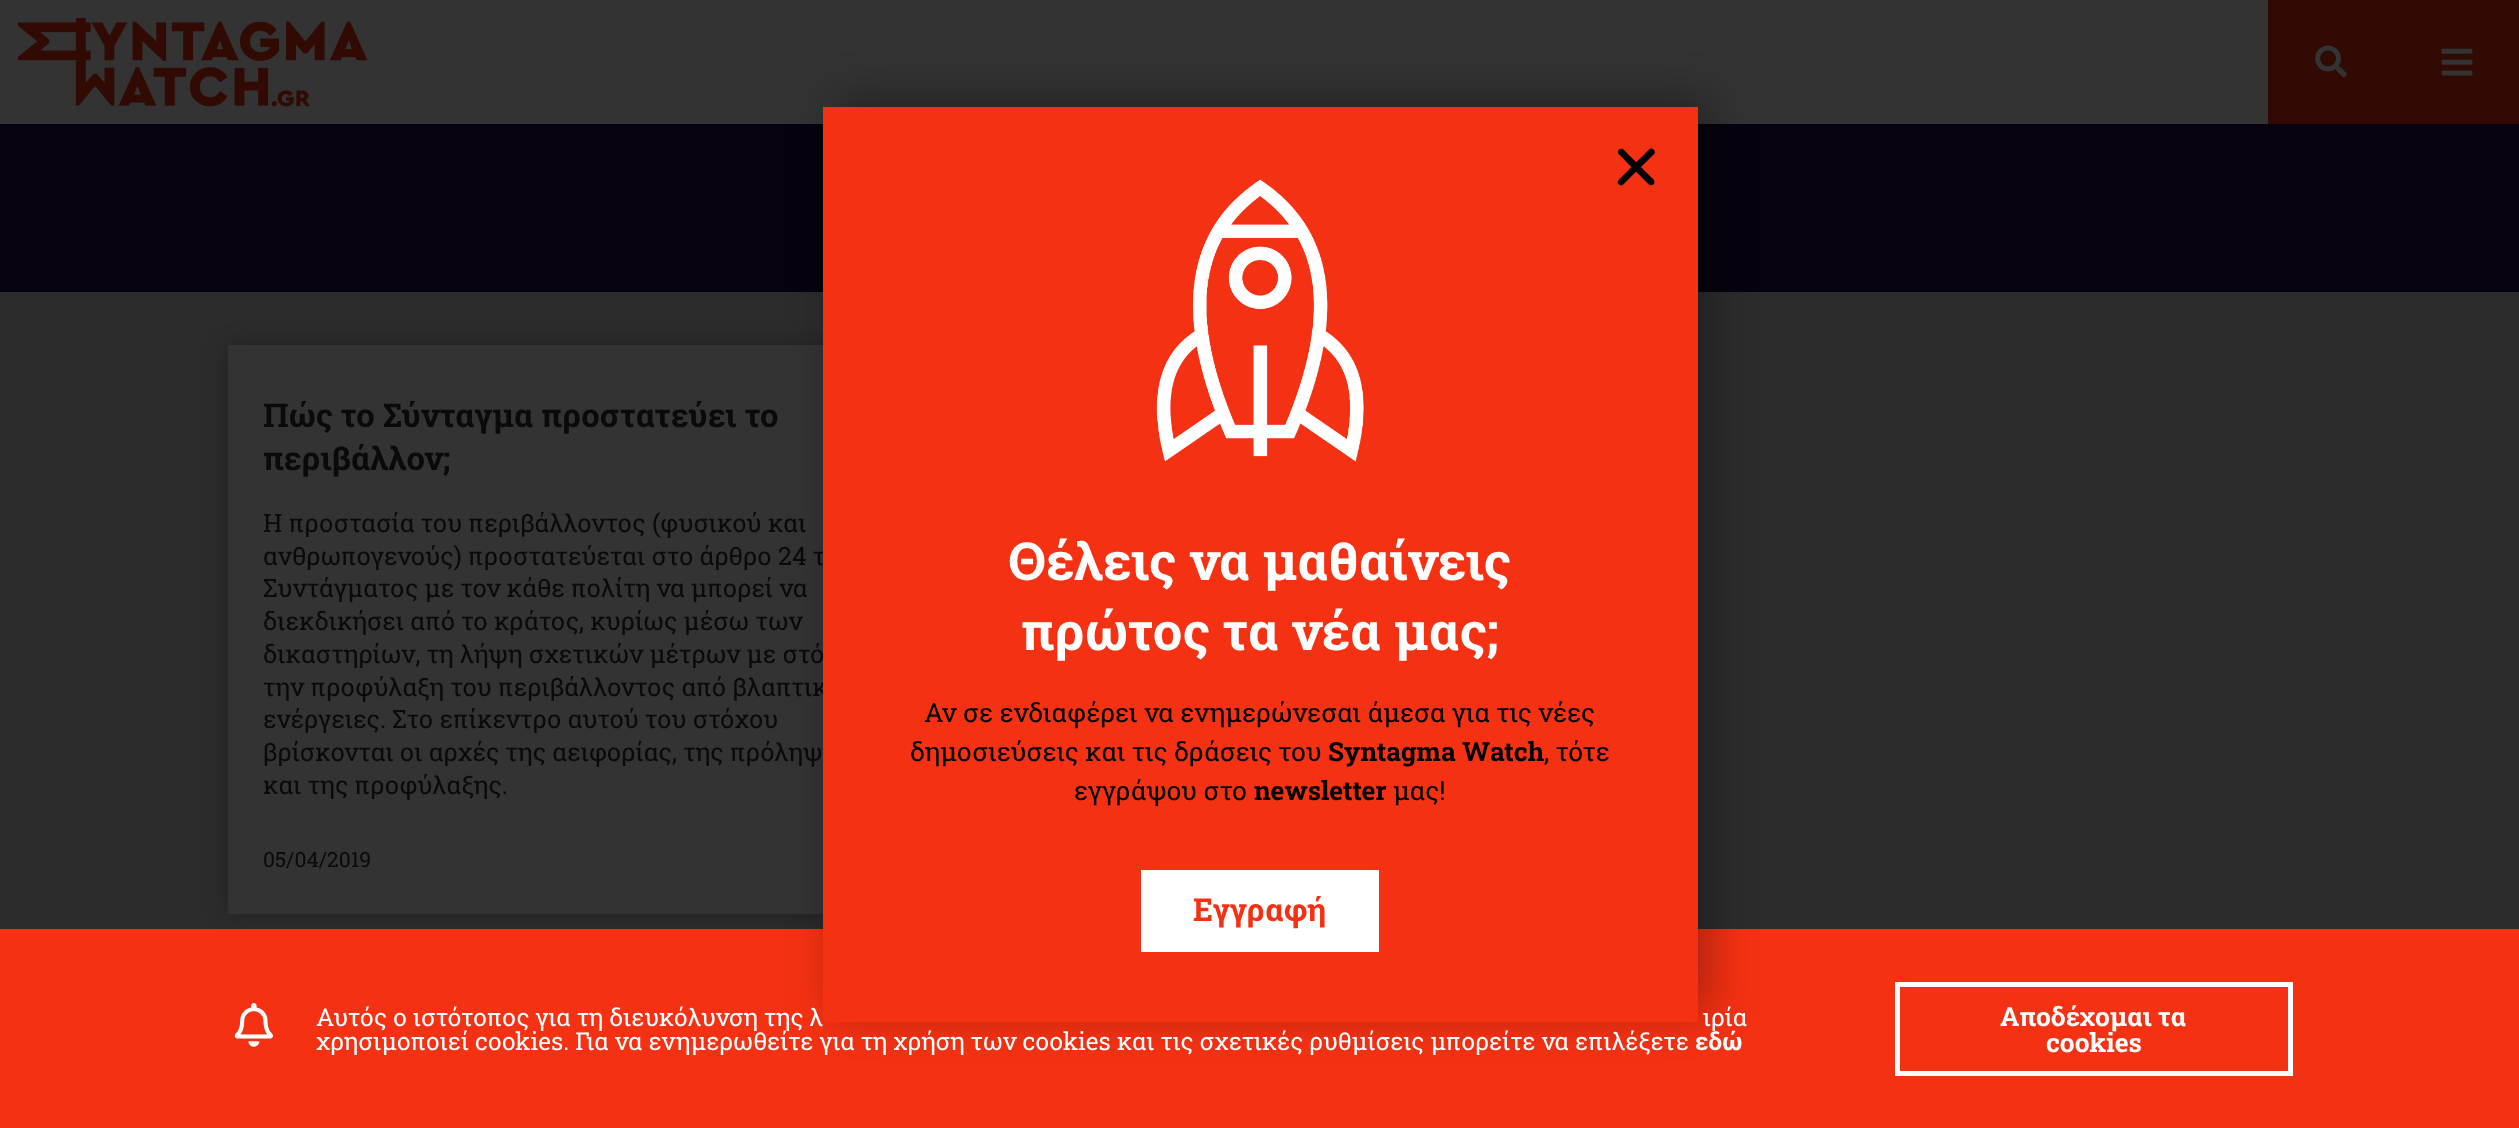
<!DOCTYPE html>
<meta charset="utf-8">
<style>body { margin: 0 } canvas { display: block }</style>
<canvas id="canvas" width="2519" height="1128"></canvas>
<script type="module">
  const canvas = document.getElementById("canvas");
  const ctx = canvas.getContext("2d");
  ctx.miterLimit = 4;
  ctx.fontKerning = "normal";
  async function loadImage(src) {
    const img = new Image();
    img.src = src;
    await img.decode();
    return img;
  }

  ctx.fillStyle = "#06030e";
  ctx.fillRect(0, 0, 2519, 1128);
  ctx.fillStyle = "#333333";
  ctx.fillRect(0, 0, 2268, 124);
  ctx.drawImage(await loadImage("img1.png"), 18, 18, 350, 89);
  ctx.fillStyle = "#310a04";
  ctx.fillRect(2268, 0, 251, 124);
  ctx.drawImage(await loadImage("img2.png"), 2315, 45, 32, 33);
  ctx.drawImage(await loadImage("img3.png"), 2441, 48, 32, 28);
  ctx.fillStyle = "#2c2c2c";
  ctx.fillRect(0, 292, 2519, 637);
  ctx.fillStyle = "rgba(0, 0, 0, 0.25)";
  ctx.filter = "blur(10.5px)";
  ctx.beginPath();
  ctx.rect(228, 345, 665, 569);
  ctx.fill();
  ctx.filter = "none";
  ctx.fillStyle = "#333333";
  ctx.fillRect(228, 345, 595, 569);
  ctx.font = "bold 32.75px Roboto Slab";
  ctx.fillStyle = "#0a0a0a";
  ctx.fillText("Πώς το Σύνταγμα προστατεύει το", 263, 427);
  ctx.fillText("περιβάλλον;", 263, 470);
  ctx.font = "25.2px Roboto Slab";
  ctx.fillText("Η προστασία του περιβάλλοντος (φυσικού και", 263, 532);
  ctx.fillText("ανθρωπογενούς) προστατεύεται στο άρθρο 24 τ", 263, 565);
  ctx.fillText("Συντάγματος με τον κάθε πολίτη να μπορεί να", 263, 597);
  ctx.fillText("διεκδικήσει από το κράτος, κυρίως μέσω των", 263, 630);
  ctx.fillText("δικαστηρίων, τη λήψη σχετικών μέτρων με στό", 263, 663);
  ctx.fillText("την προφύλαξη του περιβάλλοντος από βλαπτικ", 263, 696);
  ctx.fillText("ενέργειες. Στο επίκεντρο αυτού του στόχου", 263, 728);
  ctx.fillText("βρίσκονται οι αρχές της αειφορίας, της πρόληψ", 263, 761);
  ctx.fillText("και της προφύλαξης.", 263, 794);
  ctx.font = "21px Roboto Slab";
  ctx.fillText("05/04/2019", 263, 867);
  ctx.fillStyle = "#f43113";
  ctx.fillRect(0, 929, 2519, 199);
  ctx.fillStyle = "rgba(0, 0, 0, 0.3)";
  ctx.filter = "blur(22px)";
  ctx.beginPath();
  ctx.rect(835, 98, 875, 915);
  ctx.fill();
  ctx.filter = "none";
  ctx.fillStyle = "#f43113";
  ctx.fillRect(823, 107, 875, 915);
  ctx.drawImage(await loadImage("img4.png"), 1617, 148, 38, 38);
  ctx.drawImage(await loadImage("img5.png"), 1156, 179, 208, 283);
  ctx.font = "bold 52.5px Roboto Slab";
  ctx.fillStyle = "#ffffff";
  ctx.fillText("Θέλεις να μαθαίνεις", 1008, 580);
  ctx.fillText("πρώτος τα νέα μας;", 1021, 650);
  ctx.font = "26.25px Roboto Slab";
  ctx.fillStyle = "#000000";
  ctx.fillText("Αν σε ενδιαφέρει να ενημερώνεσαι άμεσα για τις νέες", 924, 722);
  ctx.fillText("δημοσιεύσεις και τις δράσεις του", 910, 761);
  ctx.font = "bold 26.25px Roboto Slab";
  ctx.fillText("Syntagma Watch", 1328, 761);
  ctx.font = "26.25px Roboto Slab";
  ctx.fillText(", τότε", 1544, 761);
  ctx.fillText("εγγράψου στο", 1074, 800);
  ctx.font = "bold 26.25px Roboto Slab";
  ctx.fillText("newsletter", 1254, 800);
  ctx.font = "26.25px Roboto Slab";
  ctx.fillText("μας!", 1393, 800);
  ctx.fillStyle = "#ffffff";
  ctx.fillRect(1141, 870, 238, 82);
  ctx.font = "bold 31.5px Roboto Slab";
  ctx.fillStyle = "#f43113";
  ctx.fillText("Εγγραφή", 1193, 921);
  ctx.drawImage(await loadImage("img6.png"), 234, 1003, 39, 44);
  ctx.font = "24.5px Roboto Slab";
  ctx.fillStyle = "#ffffff";
  ctx.fillText("Αυτός ο ιστότοπος για τη διευκόλυνση της λ", 316, 1026);
  ctx.fillText("ιρία", 1703, 1026);
  ctx.fillText("χρησιμοποιεί cookies. Για να ενημερωθείτε για τη χρήση των cookies και τις σχετικές ρυθμίσεις μπορείτε να επιλέξετε", 316, 1050);
  ctx.font = "bold 24.5px Roboto Slab";
  ctx.fillText("εδώ", 1695, 1050);
  ctx.strokeStyle = "#ffffff";
  ctx.lineWidth = 5;
  ctx.strokeRect(1897.5, 984.5, 393, 89);
  ctx.font = "bold 26.25px Roboto Slab";
  ctx.fillText("Αποδέχομαι τα", 2000, 1026);
  ctx.fillText("cookies", 2046, 1052);
</script>
